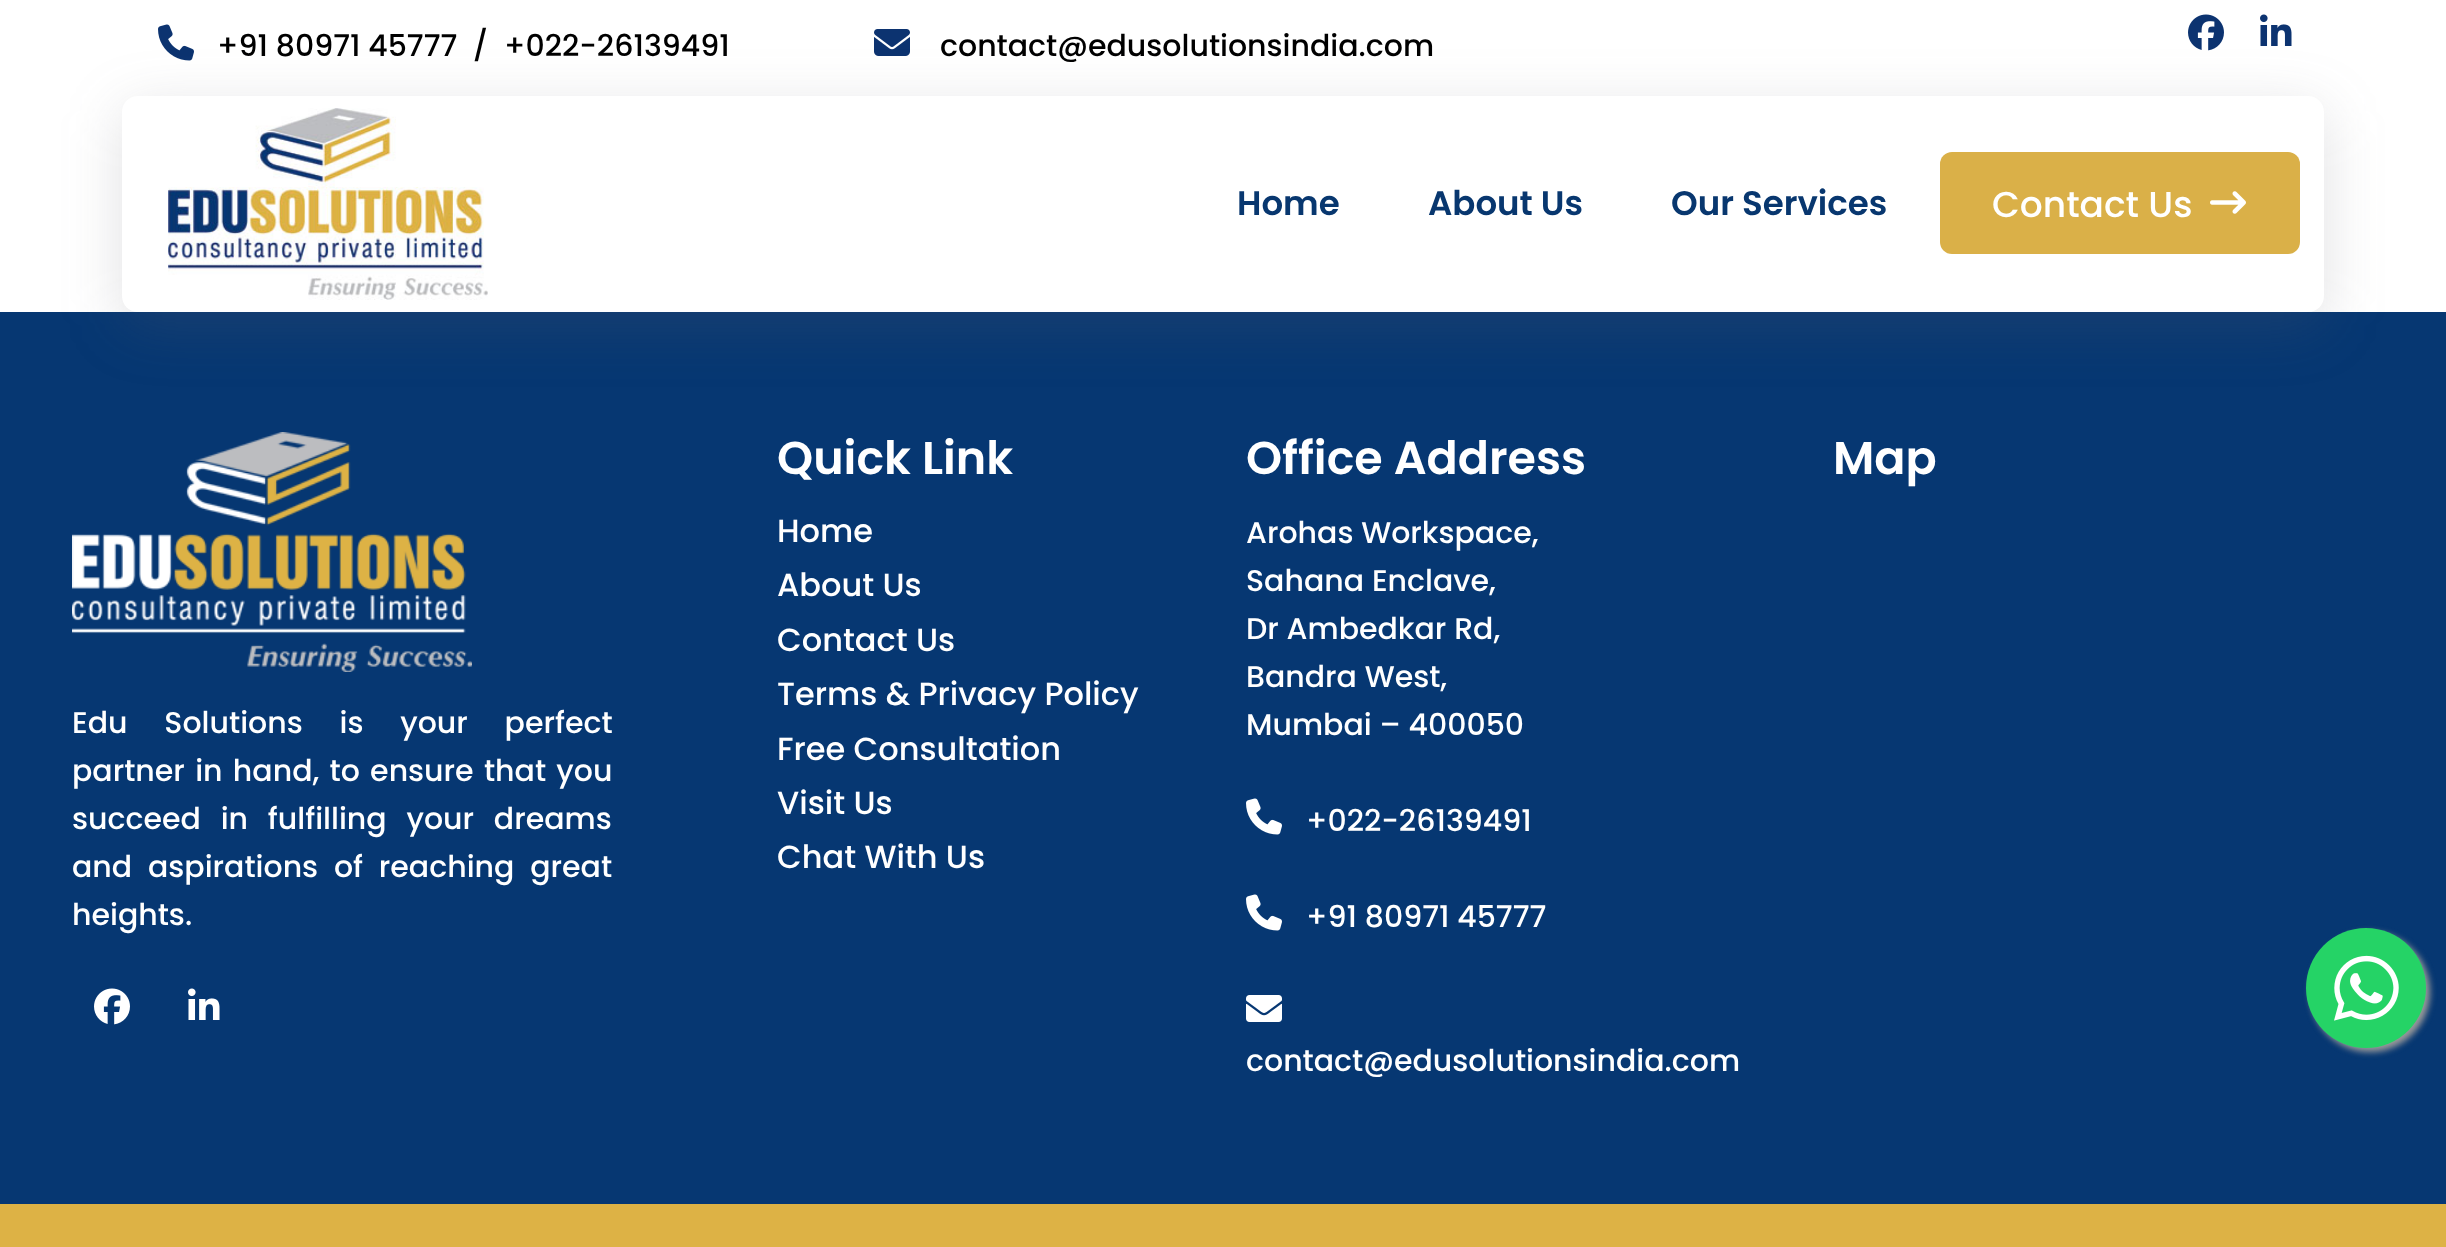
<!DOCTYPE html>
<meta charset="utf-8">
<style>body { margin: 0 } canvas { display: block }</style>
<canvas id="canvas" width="2446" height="1247"></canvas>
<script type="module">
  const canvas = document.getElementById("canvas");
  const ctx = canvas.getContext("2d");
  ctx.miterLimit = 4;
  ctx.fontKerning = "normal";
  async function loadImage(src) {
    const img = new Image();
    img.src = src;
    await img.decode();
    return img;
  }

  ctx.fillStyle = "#ffffff";
  ctx.fillRect(0, 0, 2446, 1247);
  ctx.drawImage(await loadImage("img1.png"), 158, 24, 36, 37);
  ctx.font = "500 30px Poppins";
  ctx.fillStyle = "#000000";
  ctx.fillText("+91 80971 45777  /", 217, 56);
  ctx.fillText("+022-26139491", 504, 56);
  ctx.drawImage(await loadImage("img2.png"), 874, 29, 36, 27);
  ctx.fillText("contact@edusolutionsindia.com", 940, 56);
  ctx.drawImage(await loadImage("img3.png"), 2188, 14, 36, 37);
  ctx.drawImage(await loadImage("img4.png"), 2260, 14, 32, 32);
  ctx.fillStyle = "#063772";
  ctx.fillRect(0, 312, 2446, 892);
  ctx.save();
  ctx.beginPath();
  ctx.moveTo(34, 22);
  ctx.lineTo(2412, 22);
  ctx.lineTo(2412, 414);
  ctx.lineTo(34, 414);
  ctx.closePath();
  ctx.moveTo(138, 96);
  ctx.lineTo(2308, 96);
  ctx.bezierCurveTo(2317, 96, 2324, 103, 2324, 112);
  ctx.lineTo(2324, 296);
  ctx.bezierCurveTo(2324, 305, 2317, 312, 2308, 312);
  ctx.lineTo(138, 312);
  ctx.bezierCurveTo(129, 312, 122, 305, 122, 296);
  ctx.lineTo(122, 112);
  ctx.bezierCurveTo(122, 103, 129, 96, 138, 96);
  ctx.closePath();
  ctx.clip("evenodd");
  ctx.fillStyle = "rgba(100, 100, 111, 0.2)";
  ctx.filter = "blur(29px)";
  ctx.beginPath();
  ctx.roundRect(122, 110, 2202, 216, 16);
  ctx.fill();
  ctx.filter = "none";
  ctx.restore();
  ctx.drawImage(await loadImage("img5.png"), 168, 108, 320, 192);
  ctx.font = "600 34px Poppins";
  ctx.fillStyle = "#08376f";
  ctx.fillText("Home", 1237, 215);
  ctx.fillText("About Us", 1428, 215);
  ctx.fillText("Our Services", 1671, 215);
  ctx.fillStyle = "#dab048";
  ctx.beginPath();
  ctx.roundRect(1940, 152, 360, 102, 12);
  ctx.fill();
  ctx.font = "500 36px Poppins";
  ctx.fillStyle = "#ffffff";
  ctx.fillText("Contact Us", 1992, 217);
  ctx.drawImage(await loadImage("img6.png"), 2210, 191, 36, 23);
  ctx.font = "600 46px Poppins";
  ctx.fillText("Quick Link", 777, 474);
  ctx.font = "500 32px Poppins";
  ctx.fillText("Home", 777, 542);
  ctx.fillText("About Us", 777, 596);
  ctx.fillText("Contact Us", 777, 651);
  ctx.fillText("Terms & Privacy Policy", 777, 705);
  ctx.fillText("Free Consultation", 777, 760);
  ctx.fillText("Visit Us", 777, 814);
  ctx.fillText("Chat With Us", 777, 868);
  ctx.font = "600 46px Poppins";
  ctx.fillText("Office Address", 1246, 474);
  ctx.font = "500 30px Poppins";
  ctx.fillText("Arohas Workspace,", 1246, 543);
  ctx.fillText("Sahana Enclave,", 1246, 591);
  ctx.fillText("Dr Ambedkar Rd,", 1246, 639);
  ctx.fillText("Bandra West,", 1246, 687);
  ctx.fillText("Mumbai – 400050", 1246, 735);
  ctx.drawImage(await loadImage("img7.png"), 1246, 798, 36, 37);
  ctx.fillText("+022-26139491", 1306, 831);
  ctx.drawImage(await loadImage("img7.png"), 1246, 894, 36, 37);
  ctx.fillText("+91 80971 45777", 1306, 927);
  ctx.drawImage(await loadImage("img8.png"), 1246, 995, 36, 27);
  ctx.fillText("contact@edusolutionsindia.com", 1246, 1071);
  ctx.font = "600 46px Poppins";
  ctx.fillText("Map", 1833, 474);
  ctx.drawImage(await loadImage("img9.png"), 72, 432, 400, 240);
  ctx.wordSpacing = "29px";
  ctx.font = "500 30px Poppins";
  ctx.fillText("Edu Solutions is your perfect", 72, 733);
  ctx.wordSpacing = "2.5px";
  ctx.fillText("partner in hand, to ensure that you", 72, 781);
  ctx.wordSpacing = "12px";
  ctx.fillText("succeed in fulfilling your dreams", 72, 829);
  ctx.wordSpacing = "8px";
  ctx.fillText("and aspirations of reaching great", 72, 877);
  ctx.wordSpacing = "0px";
  ctx.fillText("heights.", 72, 925);
  ctx.drawImage(await loadImage("img10.png"), 94, 988, 36, 37);
  ctx.drawImage(await loadImage("img11.png"), 188, 988, 32, 32);
  ctx.fillStyle = "#ddb245";
  ctx.fillRect(0, 1204, 2446, 43);
  ctx.fillStyle = "#999999";
  ctx.filter = "blur(3px)";
  ctx.beginPath();
  ctx.roundRect(2310, 932, 120, 120, 60);
  ctx.fill();
  ctx.filter = "none";
  ctx.fillStyle = "#25d366";
  ctx.beginPath();
  ctx.arc(2366, 988, 60, 0, Math.PI * 2);
  ctx.fill();
  ctx.drawImage(await loadImage("img12.png"), 2334, 955, 65, 66);
</script>
